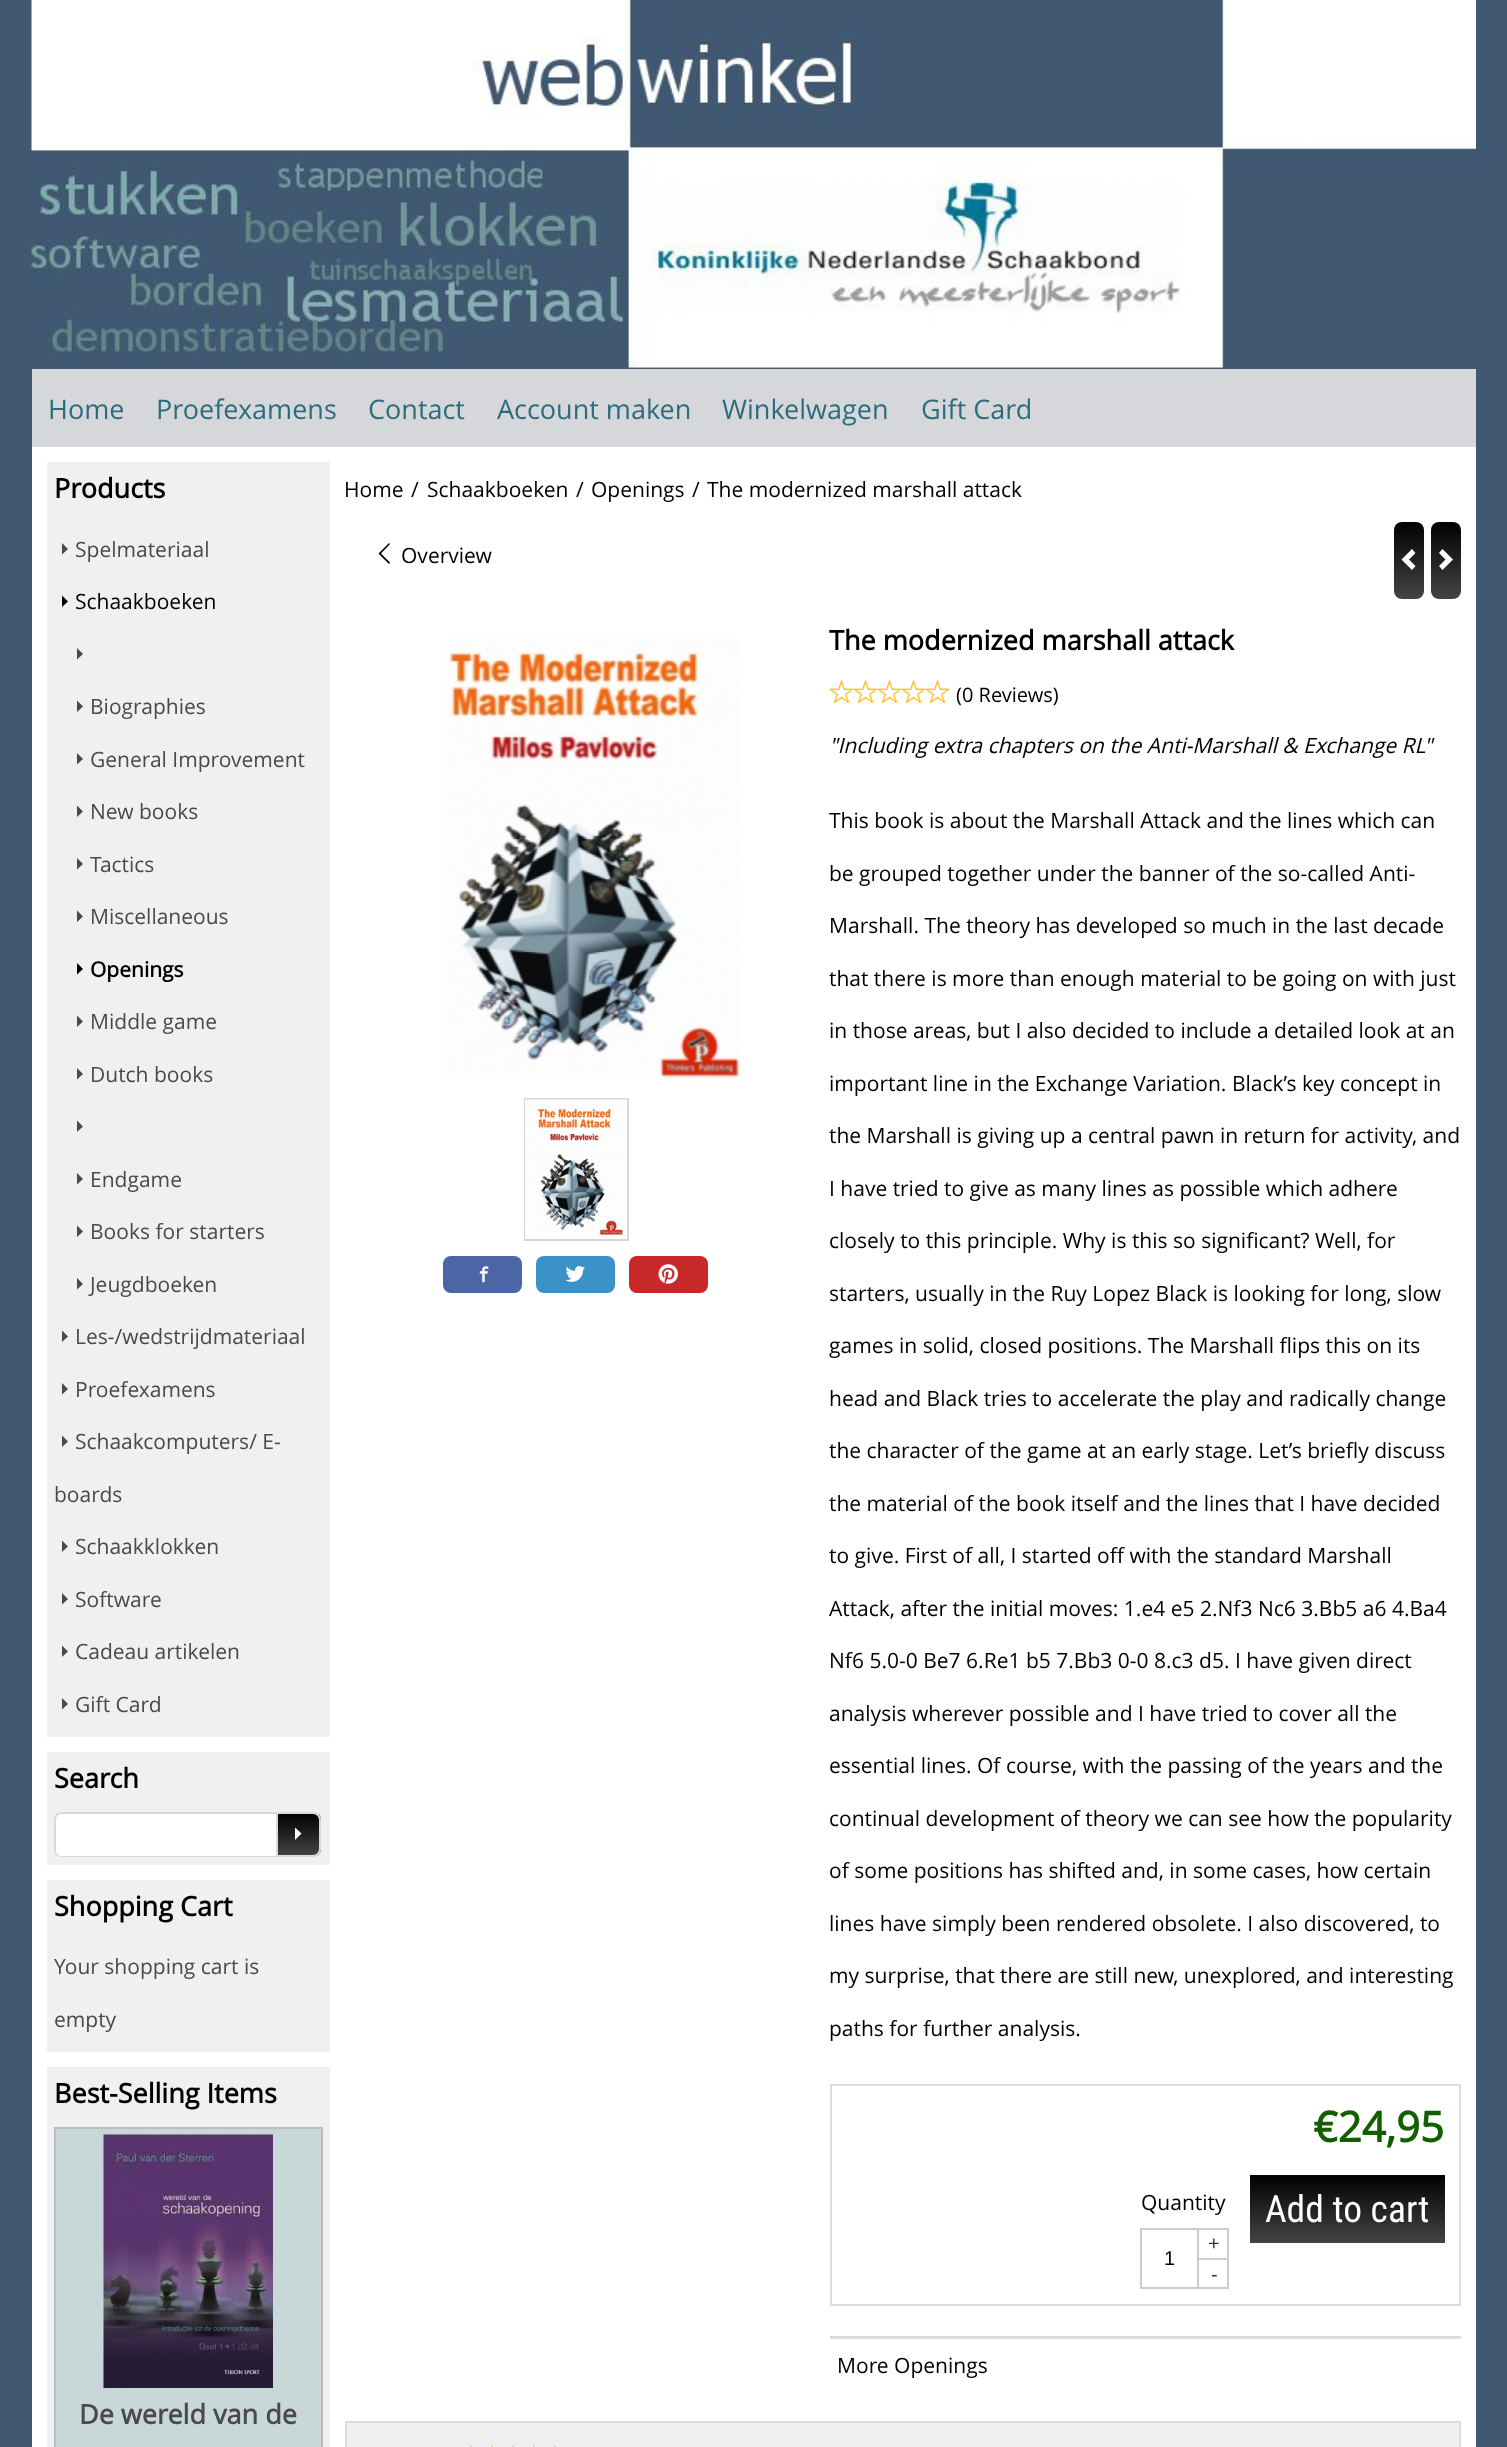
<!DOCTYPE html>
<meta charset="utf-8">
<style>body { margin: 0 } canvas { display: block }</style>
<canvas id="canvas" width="1507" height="2447"></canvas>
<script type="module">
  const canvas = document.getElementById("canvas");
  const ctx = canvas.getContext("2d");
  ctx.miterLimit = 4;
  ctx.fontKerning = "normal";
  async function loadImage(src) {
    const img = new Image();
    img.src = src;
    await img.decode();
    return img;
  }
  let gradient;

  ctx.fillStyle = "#415873";
  ctx.fillRect(0, 0, 1507, 2447);
  ctx.drawImage(await loadImage("img1.png"), 31, 0, 1445, 369);
  ctx.fillStyle = "#d6d7db";
  ctx.fillRect(32, 369, 1444, 78);
  ctx.font = "27px Open Sans";
  ctx.fillStyle = "#2c6d7d";
  ctx.fillText("Home", 48, 419);
  ctx.fillText("Proefexamens", 156, 419);
  ctx.fillText("Contact", 368, 419);
  ctx.fillText("Account maken", 497, 419);
  ctx.fillText("Winkelwagen", 722, 419);
  ctx.fillText("Gift Card", 921, 419);
  ctx.fillStyle = "#ffffff";
  ctx.fillRect(32, 447, 1444, 2000);
  ctx.fillStyle = "#f0f0f0";
  ctx.fillRect(47, 462, 283, 1275);
  ctx.font = "bold 27px Open Sans";
  ctx.fillStyle = "#000000";
  ctx.fillText("Products", 54, 498);
  ctx.font = "21px Open Sans";
  ctx.fillStyle = "#4a4a4a";
  ctx.fillText("Spelmateriaal", 75, 557);
  ctx.beginPath();
  ctx.moveTo(62, 554.5);
  ctx.lineTo(68, 549);
  ctx.lineTo(62, 543);
  ctx.closePath();
  ctx.fill();
  ctx.fillStyle = "#000000";
  ctx.fillText("Schaakboeken", 75, 609);
  ctx.beginPath();
  ctx.moveTo(62, 607);
  ctx.lineTo(68, 601.5);
  ctx.lineTo(62, 595.5);
  ctx.closePath();
  ctx.fill();
  ctx.fillStyle = "#4a4a4a";
  ctx.beginPath();
  ctx.moveTo(77, 659.5);
  ctx.lineTo(83, 654);
  ctx.lineTo(77, 648);
  ctx.closePath();
  ctx.fill();
  ctx.fillText("Biographies", 90, 714);
  ctx.beginPath();
  ctx.moveTo(77, 712);
  ctx.lineTo(83, 706.5);
  ctx.lineTo(77, 700.5);
  ctx.closePath();
  ctx.fill();
  ctx.fillText("General Improvement", 90, 767);
  ctx.beginPath();
  ctx.moveTo(77, 764.5);
  ctx.lineTo(83, 759);
  ctx.lineTo(77, 753);
  ctx.closePath();
  ctx.fill();
  ctx.fillText("New books", 90, 819);
  ctx.beginPath();
  ctx.moveTo(77, 817);
  ctx.lineTo(83, 811.5);
  ctx.lineTo(77, 805.5);
  ctx.closePath();
  ctx.fill();
  ctx.fillText("Tactics", 90, 872);
  ctx.beginPath();
  ctx.moveTo(77, 869.5);
  ctx.lineTo(83, 864);
  ctx.lineTo(77, 858);
  ctx.closePath();
  ctx.fill();
  ctx.fillText("Miscellaneous", 90, 924);
  ctx.beginPath();
  ctx.moveTo(77, 922);
  ctx.lineTo(83, 916.5);
  ctx.lineTo(77, 910.5);
  ctx.closePath();
  ctx.fill();
  ctx.font = "bold 21px Open Sans";
  ctx.fillStyle = "#000000";
  ctx.fillText("Openings", 90, 977);
  ctx.beginPath();
  ctx.moveTo(77, 974.5);
  ctx.lineTo(83, 969);
  ctx.lineTo(77, 963);
  ctx.closePath();
  ctx.fill();
  ctx.font = "21px Open Sans";
  ctx.fillStyle = "#4a4a4a";
  ctx.fillText("Middle game", 90, 1029);
  ctx.beginPath();
  ctx.moveTo(77, 1027);
  ctx.lineTo(83, 1021.5);
  ctx.lineTo(77, 1015.5);
  ctx.closePath();
  ctx.fill();
  ctx.fillText("Dutch books", 90, 1082);
  ctx.beginPath();
  ctx.moveTo(77, 1079.5);
  ctx.lineTo(83, 1074);
  ctx.lineTo(77, 1068);
  ctx.closePath();
  ctx.fill();
  ctx.beginPath();
  ctx.moveTo(77, 1132);
  ctx.lineTo(83, 1126.5);
  ctx.lineTo(77, 1120.5);
  ctx.closePath();
  ctx.fill();
  ctx.fillText("Endgame", 90, 1187);
  ctx.beginPath();
  ctx.moveTo(77, 1184.5);
  ctx.lineTo(83, 1179);
  ctx.lineTo(77, 1173);
  ctx.closePath();
  ctx.fill();
  ctx.fillText("Books for starters", 90, 1239);
  ctx.beginPath();
  ctx.moveTo(77, 1237);
  ctx.lineTo(83, 1231.5);
  ctx.lineTo(77, 1225.5);
  ctx.closePath();
  ctx.fill();
  ctx.fillText("Jeugdboeken", 90, 1292);
  ctx.beginPath();
  ctx.moveTo(77, 1289.5);
  ctx.lineTo(83, 1284);
  ctx.lineTo(77, 1278);
  ctx.closePath();
  ctx.fill();
  ctx.fillText("Les-/wedstrijdmateriaal", 75, 1344);
  ctx.beginPath();
  ctx.moveTo(62, 1342);
  ctx.lineTo(68, 1336.5);
  ctx.lineTo(62, 1330.5);
  ctx.closePath();
  ctx.fill();
  ctx.fillText("Proefexamens", 75, 1397);
  ctx.beginPath();
  ctx.moveTo(62, 1394.5);
  ctx.lineTo(68, 1389);
  ctx.lineTo(62, 1383);
  ctx.closePath();
  ctx.fill();
  ctx.fillText("Schaakcomputers/ E-", 75, 1449);
  ctx.beginPath();
  ctx.moveTo(62, 1447);
  ctx.lineTo(68, 1441.5);
  ctx.lineTo(62, 1435.5);
  ctx.closePath();
  ctx.fill();
  ctx.fillText("boards", 54, 1502);
  ctx.fillText("Schaakklokken", 75, 1554);
  ctx.beginPath();
  ctx.moveTo(62, 1552);
  ctx.lineTo(68, 1546.5);
  ctx.lineTo(62, 1540.5);
  ctx.closePath();
  ctx.fill();
  ctx.fillText("Software", 75, 1607);
  ctx.beginPath();
  ctx.moveTo(62, 1604.5);
  ctx.lineTo(68, 1599);
  ctx.lineTo(62, 1593);
  ctx.closePath();
  ctx.fill();
  ctx.fillText("Cadeau artikelen", 75, 1659);
  ctx.beginPath();
  ctx.moveTo(62, 1657);
  ctx.lineTo(68, 1651.5);
  ctx.lineTo(62, 1645.5);
  ctx.closePath();
  ctx.fill();
  ctx.fillText("Gift Card", 75, 1712);
  ctx.beginPath();
  ctx.moveTo(62, 1709.5);
  ctx.lineTo(68, 1704);
  ctx.lineTo(62, 1698);
  ctx.closePath();
  ctx.fill();
  ctx.fillStyle = "#f0f0f0";
  ctx.fillRect(47, 1752, 283, 113);
  ctx.font = "bold 27px Open Sans";
  ctx.fillStyle = "#000000";
  ctx.fillText("Search", 54, 1788);
  ctx.fillStyle = "#ffffff";
  ctx.beginPath();
  ctx.roundRect(54, 1812, 222, 45, [8, 0, 0, 8]);
  ctx.fill();
  ctx.fillStyle = "#d9d9d9";
  ctx.beginPath();
  ctx.moveTo(62, 1812);
  ctx.lineTo(276, 1812);
  ctx.lineTo(276, 1857);
  ctx.lineTo(62, 1857);
  ctx.bezierCurveTo(57, 1857, 54, 1854, 54, 1850);
  ctx.lineTo(54, 1820);
  ctx.bezierCurveTo(54, 1815, 57, 1812, 62, 1812);
  ctx.closePath();
  ctx.moveTo(62, 1814);
  ctx.lineTo(276, 1814);
  ctx.lineTo(276, 1856);
  ctx.lineTo(62, 1856);
  ctx.bezierCurveTo(58, 1856, 56, 1853, 56, 1850);
  ctx.lineTo(56, 1820);
  ctx.bezierCurveTo(56, 1816, 58, 1814, 62, 1814);
  ctx.closePath();
  ctx.fill("evenodd");
  ctx.save();
  ctx.beginPath();
  ctx.roundRect(276, 1812, 45, 45, [0, 8, 8, 0]);
  ctx.clip();
  gradient = ctx.createLinearGradient(299, 1814, 299, 1856);
  gradient.addColorStop(0, "#010101");
  gradient.addColorStop(1, "#444444");
  ctx.fillStyle = gradient;
  ctx.fillRect(278, 1814, 43, 42);
  ctx.restore();
  ctx.beginPath();
  ctx.roundRect(277, 1813, 43, 43, [0, 7, 7, 0]);
  ctx.strokeStyle = "#d9d9d9";
  ctx.lineWidth = 2;
  ctx.stroke();
  ctx.fillStyle = "#ffffff";
  ctx.beginPath();
  ctx.moveTo(295, 1840);
  ctx.lineTo(301.5, 1833.5);
  ctx.lineTo(295, 1827.5);
  ctx.closePath();
  ctx.fill();
  ctx.fillStyle = "#f0f0f0";
  ctx.fillRect(47, 1880, 283, 172);
  ctx.fillStyle = "#000000";
  ctx.fillText("Shopping Cart", 54, 1916);
  ctx.font = "21px Open Sans";
  ctx.fillStyle = "#4a4a4a";
  ctx.fillText("Your shopping cart is", 54, 1974);
  ctx.fillText("empty", 54, 2027);
  ctx.fillStyle = "#f0f0f0";
  ctx.fillRect(47, 2067, 283, 380);
  ctx.font = "bold 27px Open Sans";
  ctx.fillStyle = "#000000";
  ctx.fillText("Best-Selling Items", 54, 2103);
  ctx.fillStyle = "#c8d8d8";
  ctx.beginPath();
  ctx.rect(55, 2128, 267, 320);
  ctx.fill();
  ctx.strokeStyle = "#bdbdbd";
  ctx.stroke();
  ctx.drawImage(await loadImage("img2.png"), 103, 2134, 170, 254);
  ctx.fillStyle = "#4a4a4a";
  ctx.fillText("De wereld van de", 79, 2424);
  ctx.font = "21px Open Sans";
  ctx.fillStyle = "#000000";
  ctx.fillText("Home", 344, 497);
  ctx.fillText("/", 411, 497);
  ctx.fillText("Schaakboeken", 427, 497);
  ctx.fillText("/", 576, 497);
  ctx.fillText("Openings", 591, 497);
  ctx.fillText("/", 692, 497);
  ctx.fillText("The modernized marshall attack", 707, 497);
  ctx.fillText("Overview", 401, 563);
  ctx.beginPath();
  ctx.moveTo(389, 564);
  ctx.lineTo(390, 562.5);
  ctx.lineTo(381, 553.5);
  ctx.lineTo(390, 544);
  ctx.lineTo(389, 543);
  ctx.lineTo(378.5, 553.5);
  ctx.closePath();
  ctx.fill();
  gradient = ctx.createLinearGradient(1409, 522, 1409, 599);
  gradient.addColorStop(0, "#010101");
  gradient.addColorStop(1, "#444444");
  ctx.fillStyle = gradient;
  ctx.beginPath();
  ctx.roundRect(1394, 522, 30, 77, 8);
  ctx.fill();
  ctx.fillStyle = "#ffffff";
  ctx.beginPath();
  ctx.moveTo(1412, 570);
  ctx.lineTo(1415.5, 566);
  ctx.lineTo(1409, 559.5);
  ctx.lineTo(1415.5, 553);
  ctx.lineTo(1412, 549);
  ctx.lineTo(1401.5, 559.5);
  ctx.closePath();
  ctx.fill();
  gradient = ctx.createLinearGradient(1446, 522, 1446, 599);
  gradient.addColorStop(0, "#010101");
  gradient.addColorStop(1, "#444444");
  ctx.fillStyle = gradient;
  ctx.beginPath();
  ctx.roundRect(1431, 522, 30, 77, 8);
  ctx.fill();
  ctx.fillStyle = "#ffffff";
  ctx.beginPath();
  ctx.moveTo(1442.5, 549);
  ctx.lineTo(1439, 553);
  ctx.lineTo(1445.5, 559.5);
  ctx.lineTo(1439, 566);
  ctx.lineTo(1442.5, 570);
  ctx.lineTo(1453, 559.5);
  ctx.closePath();
  ctx.fill();
  ctx.drawImage(await loadImage("img3.png"), 447, 639, 293, 440);
  ctx.strokeStyle = "#d6d6d6";
  ctx.strokeRect(525, 1099, 103, 141);
  ctx.drawImage(await loadImage("img4.png"), 525, 1099, 103, 140);
  ctx.fillStyle = "#4c65a5";
  ctx.beginPath();
  ctx.roundRect(443, 1256, 79, 37, 8);
  ctx.fill();
  ctx.drawImage(await loadImage("img5.png"), 479, 1266, 10, 17);
  ctx.fillStyle = "#3b92c8";
  ctx.beginPath();
  ctx.roundRect(536, 1256, 79, 37, 8);
  ctx.fill();
  ctx.drawImage(await loadImage("img6.png"), 565, 1266, 20, 16);
  ctx.fillStyle = "#c82828";
  ctx.beginPath();
  ctx.roundRect(629, 1256, 79, 37, 8);
  ctx.fill();
  ctx.drawImage(await loadImage("img7.png"), 658, 1264, 20, 20);
  ctx.font = "bold 27px Open Sans";
  ctx.fillStyle = "#000000";
  ctx.fillText("The modernized marshall attack", 829, 650);
  ctx.drawImage(await loadImage("img8.png"), 829, 680, 25, 24);
  ctx.drawImage(await loadImage("img9.png"), 853, 680, 25, 24);
  ctx.drawImage(await loadImage("img9.png"), 877, 680, 25, 24);
  ctx.drawImage(await loadImage("img9.png"), 901, 680, 25, 24);
  ctx.drawImage(await loadImage("img9.png"), 925, 680, 25, 24);
  ctx.font = "20px Open Sans";
  ctx.fillText("(0 Reviews)", 956, 702);
  ctx.font = "italic 21px Open Sans";
  ctx.fillText("\"Including extra chapters on the Anti-Marshall & Exchange RL\"", 829, 753);
  ctx.font = "21px Open Sans";
  ctx.fillText("This book is about the Marshall Attack and the lines which can", 829, 828);
  ctx.fillText("be grouped together under the banner of the so-called Anti-", 829, 881);
  ctx.fillText("Marshall. The theory has developed so much in the last decade", 829, 933);
  ctx.fillText("that there is more than enough material to be going on with just", 829, 986);
  ctx.fillText("in those areas, but I also decided to include a detailed look at an", 829, 1038);
  ctx.fillText("important line in the Exchange Variation. Black’s key concept in", 829, 1091);
  ctx.fillText("the Marshall is giving up a central pawn in return for activity, and", 829, 1143);
  ctx.fillText("I have tried to give as many lines as possible which adhere", 829, 1196);
  ctx.fillText("closely to this principle. Why is this so significant? Well, for", 829, 1248);
  ctx.fillText("starters, usually in the Ruy Lopez Black is looking for long, slow", 829, 1301);
  ctx.fillText("games in solid, closed positions. The Marshall flips this on its", 829, 1353);
  ctx.fillText("head and Black tries to accelerate the play and radically change", 829, 1406);
  ctx.fillText("the character of the game at an early stage. Let’s briefly discuss", 829, 1458);
  ctx.fillText("the material of the book itself and the lines that I have decided", 829, 1511);
  ctx.fillText("to give. First of all, I started off with the standard Marshall", 829, 1563);
  ctx.fillText("Attack, after the initial moves: 1.e4 e5 2.Nf3 Nc6 3.Bb5 a6 4.Ba4", 829, 1616);
  ctx.fillText("Nf6 5.0-0 Be7 6.Re1 b5 7.Bb3 0-0 8.c3 d5. I have given direct", 829, 1668);
  ctx.fillText("analysis wherever possible and I have tried to cover all the", 829, 1721);
  ctx.fillText("essential lines. Of course, with the passing of the years and the", 829, 1773);
  ctx.fillText("continual development of theory we can see how the popularity", 829, 1826);
  ctx.fillText("of some positions has shifted and, in some cases, how certain", 829, 1878);
  ctx.fillText("lines have simply been rendered obsolete. I also discovered, to", 829, 1931);
  ctx.fillText("my surprise, that there are still new, unexplored, and interesting", 829, 1983);
  ctx.fillText("paths for further analysis.", 829, 2036);
  ctx.strokeStyle = "#dcdcdc";
  ctx.strokeRect(831, 2085, 629, 220);
  ctx.font = "bold 42px Open Sans";
  ctx.fillStyle = "#145e02";
  ctx.fillText("€24,95", 1313, 2142);
  ctx.font = "21px Open Sans";
  ctx.fillStyle = "#000000";
  ctx.fillText("Quantity", 1141, 2210);
  ctx.strokeStyle = "#cccccc";
  ctx.strokeRect(1141, 2229, 87, 59);
  ctx.font = "20px Liberation Sans";
  ctx.fillText("1", 1164, 2265);
  ctx.fillStyle = "#cccccc";
  ctx.fillRect(1197, 2258, 32, 2);
  ctx.fillRect(1197, 2228, 2, 60);
  ctx.fillStyle = "#333333";
  ctx.fillText("+", 1208, 2250);
  ctx.fillText("-", 1211, 2281);
  gradient = ctx.createLinearGradient(1347, 2175, 1347, 2243);
  gradient.addColorStop(0, "#010101");
  gradient.addColorStop(1, "#444444");
  ctx.fillStyle = gradient;
  ctx.fillRect(1250, 2175, 195, 68);
  ctx.font = "37.5px Roboto Condensed";
  ctx.fillStyle = "#ffffff";
  ctx.fillText("Add to cart", 1265, 2222);
  ctx.fillStyle = "#dcdcdc";
  ctx.fillRect(830, 2336, 631, 3);
  ctx.font = "21px Open Sans";
  ctx.fillStyle = "#000000";
  ctx.fillText("More Openings", 837, 2373);
  ctx.fillStyle = "#f0f0f0";
  ctx.beginPath();
  ctx.rect(346, 2422, 1114, 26);
  ctx.fill();
  ctx.strokeStyle = "#dcdcdc";
  ctx.stroke();
  ctx.drawImage(await loadImage("img10.png"), 470, 2445, 2, 2);
  ctx.drawImage(await loadImage("img10.png"), 491, 2445, 2, 2);
  ctx.drawImage(await loadImage("img10.png"), 512, 2445, 2, 2);
  ctx.drawImage(await loadImage("img10.png"), 533, 2445, 2, 2);
  ctx.drawImage(await loadImage("img10.png"), 554, 2445, 2, 2);
</script>
